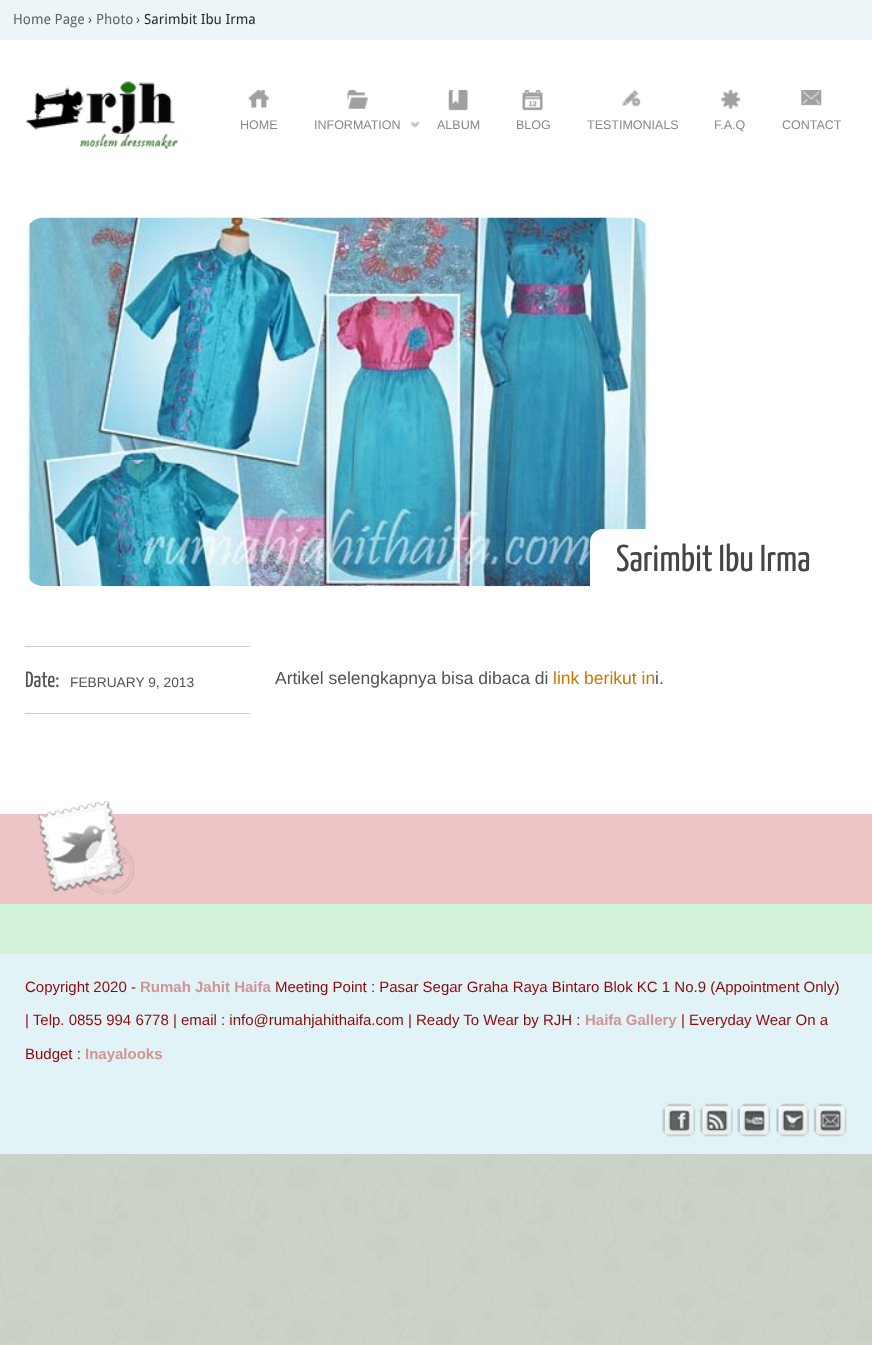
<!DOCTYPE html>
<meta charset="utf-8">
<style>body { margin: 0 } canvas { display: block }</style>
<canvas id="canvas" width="872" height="1345"></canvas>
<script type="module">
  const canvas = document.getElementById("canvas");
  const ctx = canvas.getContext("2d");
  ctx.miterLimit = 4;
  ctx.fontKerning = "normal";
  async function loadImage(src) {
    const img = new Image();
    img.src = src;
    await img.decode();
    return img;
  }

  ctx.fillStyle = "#cbd3c5";
  ctx.fillRect(0, 0, 872, 1345);
  ctx.drawImage(await loadImage("img1.png"), 0, 1154, 872, 190);
  ctx.fillStyle = "#ffffff";
  ctx.fillRect(0, 40, 872, 774);
  ctx.fillStyle = "#ecf6f9";
  ctx.fillRect(0, 0, 872, 40);
  ctx.font = "14px Droid Sans";
  ctx.fillStyle = "#656363";
  ctx.fillText("Home Page", 13, 24);
  ctx.fillStyle = "#545252";
  ctx.fillText("›", 88, 24);
  ctx.fillStyle = "#656363";
  ctx.fillText("Photo", 96, 24);
  ctx.fillStyle = "#545252";
  ctx.fillText("›", 136, 24);
  ctx.fillStyle = "#2c2b2b";
  ctx.fillText("Sarimbit Ibu Irma", 144, 24);
  ctx.drawImage(await loadImage("img2.png"), 26, 81, 152, 68);
  ctx.drawImage(await loadImage("img3.png"), 248, 90, 21, 18);
  ctx.font = "12.5px Liberation Sans";
  ctx.fillStyle = "#898787";
  ctx.fillText("HOME", 240, 129);
  ctx.drawImage(await loadImage("img4.png"), 347, 90, 21, 19);
  ctx.fillText("INFORMATION", 314, 129);
  ctx.drawImage(await loadImage("img5.png"), 411, 121, 9, 7);
  ctx.drawImage(await loadImage("img6.png"), 448, 90, 20, 21);
  ctx.fillText("ALBUM", 437, 129);
  ctx.drawImage(await loadImage("img7.png"), 522, 90, 21, 21);
  ctx.fillText("BLOG", 516, 129);
  ctx.drawImage(await loadImage("img8.png"), 622, 90, 19, 17);
  ctx.fillText("TESTIMONIALS", 587, 129);
  ctx.drawImage(await loadImage("img9.png"), 721, 90, 19, 19);
  ctx.fillText("F.A.Q", 714, 129);
  ctx.drawImage(await loadImage("img10.png"), 801, 90, 21, 16);
  ctx.fillText("CONTACT", 782, 129);
  ctx.drawImage(await loadImage("img11.png"), 25, 217, 625, 370);
  ctx.fillStyle = "#ffffff";
  ctx.beginPath();
  ctx.roundRect(590, 529, 258, 62, [13, 0, 0, 0]);
  ctx.fill();
  ctx.font = "37.5px Yanone Kaffeesatz";
  ctx.fillStyle = "#454545";
  ctx.fillText("Sarimbit Ibu Irma", 616, 571);
  ctx.fillStyle = "#c9cacb";
  ctx.fillRect(25, 646, 225, 1);
  ctx.fillRect(25, 713, 225, 1);
  ctx.font = "22px Yanone Kaffeesatz";
  ctx.fillStyle = "#545252";
  ctx.fillText("Date:", 25, 687);
  ctx.font = "13.75px Liberation Sans";
  ctx.fillText("FEBRUARY 9, 2013", 70, 687);
  ctx.font = "17.5px Liberation Sans";
  ctx.fillText("Artikel selengkapnya bisa dibaca di", 275, 684);
  ctx.fillStyle = "#c57901";
  ctx.fillText("link berikut in", 553, 684);
  ctx.fillStyle = "#545252";
  ctx.fillText("i.", 655, 684);
  ctx.fillStyle = "#edc5c6";
  ctx.fillRect(0, 814, 872, 90);
  ctx.drawImage(await loadImage("img12.png"), 37, 801, 97, 93);
  ctx.fillStyle = "#d3f3dc";
  ctx.fillRect(0, 904, 872, 50);
  ctx.fillStyle = "#e2f3f8";
  ctx.fillRect(0, 954, 872, 200);
  ctx.font = "15px Liberation Sans";
  ctx.fillStyle = "#8a0a0a";
  ctx.fillText("Copyright 2020 -", 25, 992);
  ctx.font = "bold 15px Liberation Sans";
  ctx.fillStyle = "#d19494";
  ctx.fillText("Rumah Jahit Haifa", 140, 992);
  ctx.font = "15px Liberation Sans";
  ctx.fillStyle = "#8a0a0a";
  ctx.fillText("Meeting Point : Pasar Segar Graha Raya Bintaro Blok KC 1 No.9 (Appointment Only)", 275, 992);
  ctx.fillText("| Telp. 0855 994 6778 | email : info@rumahjahithaifa.com | Ready To Wear by RJH :", 25, 1025);
  ctx.font = "bold 15px Liberation Sans";
  ctx.fillStyle = "#d19494";
  ctx.fillText("Haifa Gallery", 585, 1025);
  ctx.font = "15px Liberation Sans";
  ctx.fillStyle = "#8a0a0a";
  ctx.fillText("| Everyday Wear On a", 681, 1025);
  ctx.fillText("Budget :", 25, 1059);
  ctx.font = "bold 15px Liberation Sans";
  ctx.fillStyle = "#d19494";
  ctx.fillText("Inayalooks", 85, 1059);
  ctx.drawImage(await loadImage("img13.png"), 662, 1103, 34, 34);
  ctx.drawImage(await loadImage("img14.png"), 700, 1103, 33, 34);
  ctx.drawImage(await loadImage("img15.png"), 737, 1103, 34, 34);
  ctx.drawImage(await loadImage("img16.png"), 776, 1103, 33, 34);
  ctx.drawImage(await loadImage("img17.png"), 813, 1103, 34, 34);
</script>
